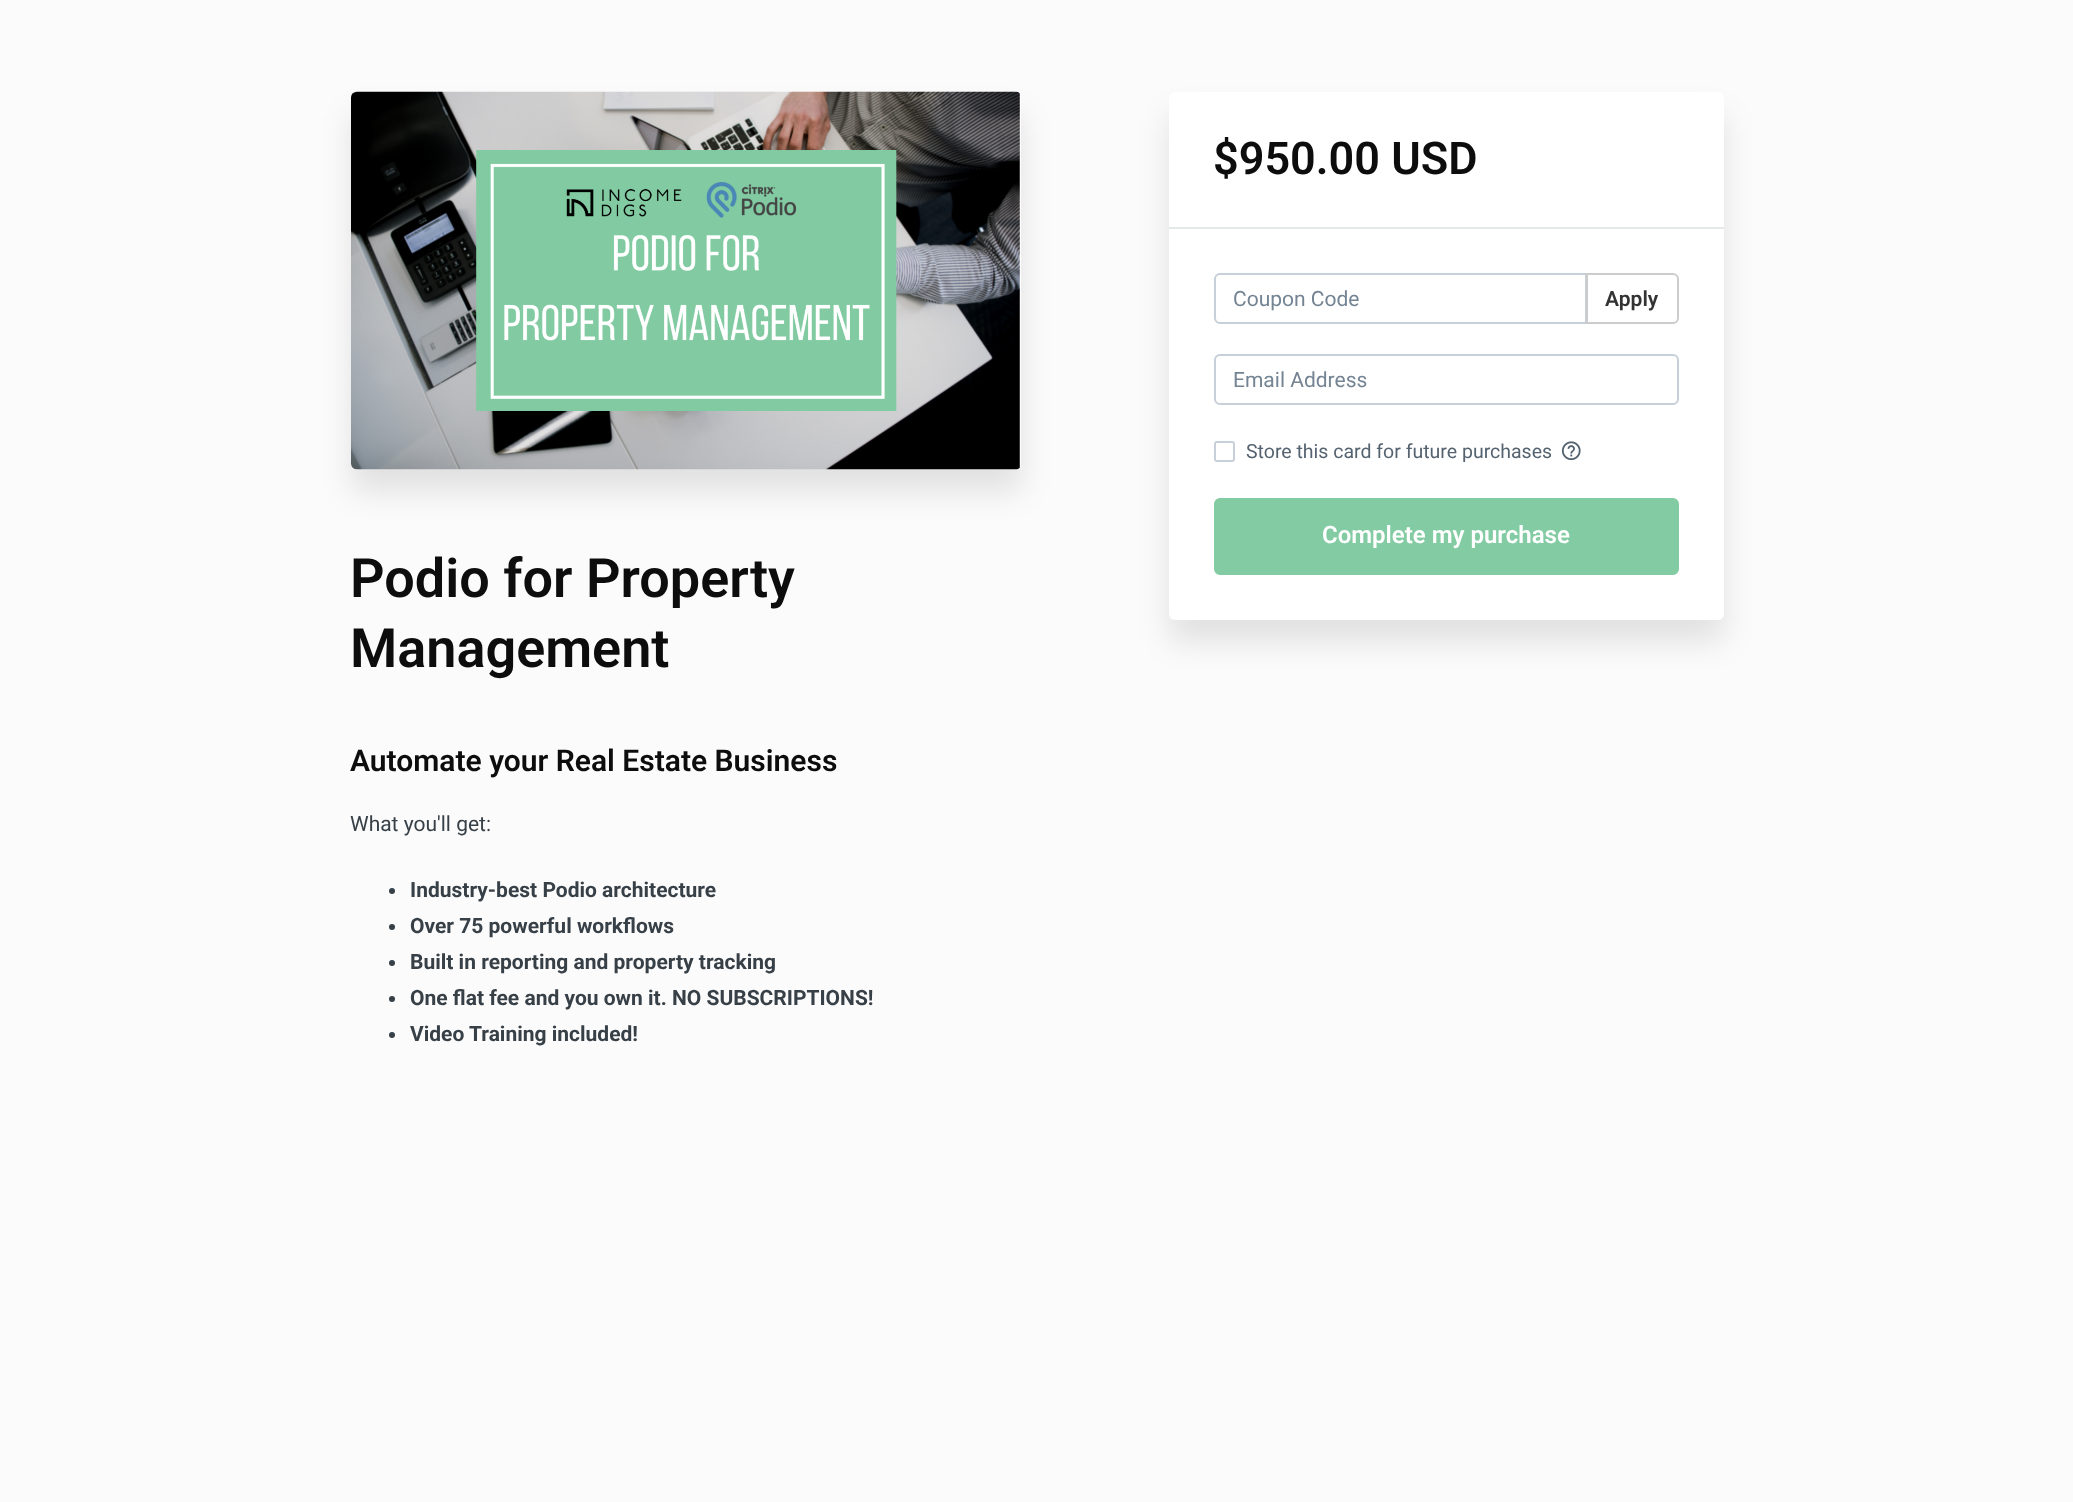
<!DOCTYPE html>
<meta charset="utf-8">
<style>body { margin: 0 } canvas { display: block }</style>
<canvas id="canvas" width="2073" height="1502"></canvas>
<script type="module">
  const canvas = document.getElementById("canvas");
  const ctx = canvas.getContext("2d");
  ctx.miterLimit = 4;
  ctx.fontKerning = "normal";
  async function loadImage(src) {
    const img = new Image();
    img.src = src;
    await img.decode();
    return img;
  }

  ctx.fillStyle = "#fbfbfb";
  ctx.fillRect(0, 0, 2073, 1502);
  ctx.fillStyle = "rgba(0, 0, 0, 0.1)";
  ctx.filter = "blur(15px)";
  ctx.beginPath();
  ctx.roundRect(1169, 114, 555, 528, 6);
  ctx.fill();
  ctx.filter = "none";
  ctx.fillStyle = "#ffffff";
  ctx.beginPath();
  ctx.roundRect(1169, 92, 555, 528, 6);
  ctx.fill();
  ctx.fillStyle = "#e5e9e9";
  ctx.fillRect(1169, 227, 555, 2);
  ctx.font = "600 45px Roboto";
  ctx.fillStyle = "#0d0d0d";
  ctx.fillText("$950.00 USD", 1213, 174);
  ctx.beginPath();
  ctx.roundRect(1215, 274, 371, 49, [5, 0, 0, 5]);
  ctx.strokeStyle = "#c7cfd8";
  ctx.lineWidth = 2;
  ctx.stroke();
  ctx.font = "21px Roboto";
  ctx.fillStyle = "#748493";
  ctx.fillText("Coupon Code", 1233, 306);
  ctx.fillStyle = "#ffffff";
  ctx.beginPath();
  ctx.roundRect(1587, 274, 91, 49, [0, 5, 5, 0]);
  ctx.fill();
  ctx.strokeStyle = "#cccccc";
  ctx.stroke();
  ctx.font = "600 21px Roboto";
  ctx.fillStyle = "#333333";
  ctx.fillText("Apply", 1605, 306);
  ctx.beginPath();
  ctx.roundRect(1215, 355, 463, 49, 5);
  ctx.strokeStyle = "#c7cfd8";
  ctx.stroke();
  ctx.font = "21px Roboto";
  ctx.fillStyle = "#748493";
  ctx.fillText("Email Address", 1233, 387);
  ctx.beginPath();
  ctx.roundRect(1215, 442, 19, 19, 2);
  ctx.stroke();
  ctx.font = "19.5px Roboto";
  ctx.fillStyle = "#556370";
  ctx.fillText("Store this card for future purchases", 1246, 458);
  ctx.drawImage(await loadImage("img1.png"), 1561, 441, 20, 20);
  ctx.fillStyle = "#83cca3";
  ctx.beginPath();
  ctx.roundRect(1215, 499, 463, 75, 5);
  ctx.fill();
  ctx.strokeStyle = "#83cca3";
  ctx.stroke();
  ctx.font = "600 24px Roboto";
  ctx.fillStyle = "#ffffff";
  ctx.fillText("Complete my purchase", 1322, 543);
  ctx.fillStyle = "rgba(0, 0, 0, 0.1)";
  ctx.filter = "blur(15px)";
  ctx.beginPath();
  ctx.roundRect(351, 114, 671, 378, 6);
  ctx.fill();
  ctx.filter = "none";
  ctx.drawImage(await loadImage("img2.png"), 351, 91, 670, 379);
  ctx.font = "600 54px Roboto";
  ctx.fillStyle = "#0d0d0d";
  ctx.fillText("Podio for Property", 350, 597);
  ctx.fillText("Management", 350, 667);
  ctx.font = "600 30px Roboto";
  ctx.fillText("Automate your Real Estate Business", 350, 771);
  ctx.font = "21px Roboto";
  ctx.fillStyle = "#373f47";
  ctx.fillText("What you'll get:", 350, 831);
  ctx.beginPath();
  ctx.arc(392, 891, 3, 0, Math.PI * 2);
  ctx.fill();
  ctx.font = "bold 21px Roboto";
  ctx.fillText("Industry-best Podio architecture", 410, 897);
  ctx.beginPath();
  ctx.arc(392, 927, 3, 0, Math.PI * 2);
  ctx.fill();
  ctx.fillText("Over 75 powerful workflows", 410, 933);
  ctx.beginPath();
  ctx.arc(392, 963, 3, 0, Math.PI * 2);
  ctx.fill();
  ctx.fillText("Built in reporting and property tracking", 410, 969);
  ctx.beginPath();
  ctx.arc(392, 999, 3, 0, Math.PI * 2);
  ctx.fill();
  ctx.fillText("One flat fee and you own it. NO SUBSCRIPTIONS!", 410, 1005);
  ctx.beginPath();
  ctx.arc(392, 1035, 3, 0, Math.PI * 2);
  ctx.fill();
  ctx.fillText("Video Training included!", 410, 1041);
</script>
